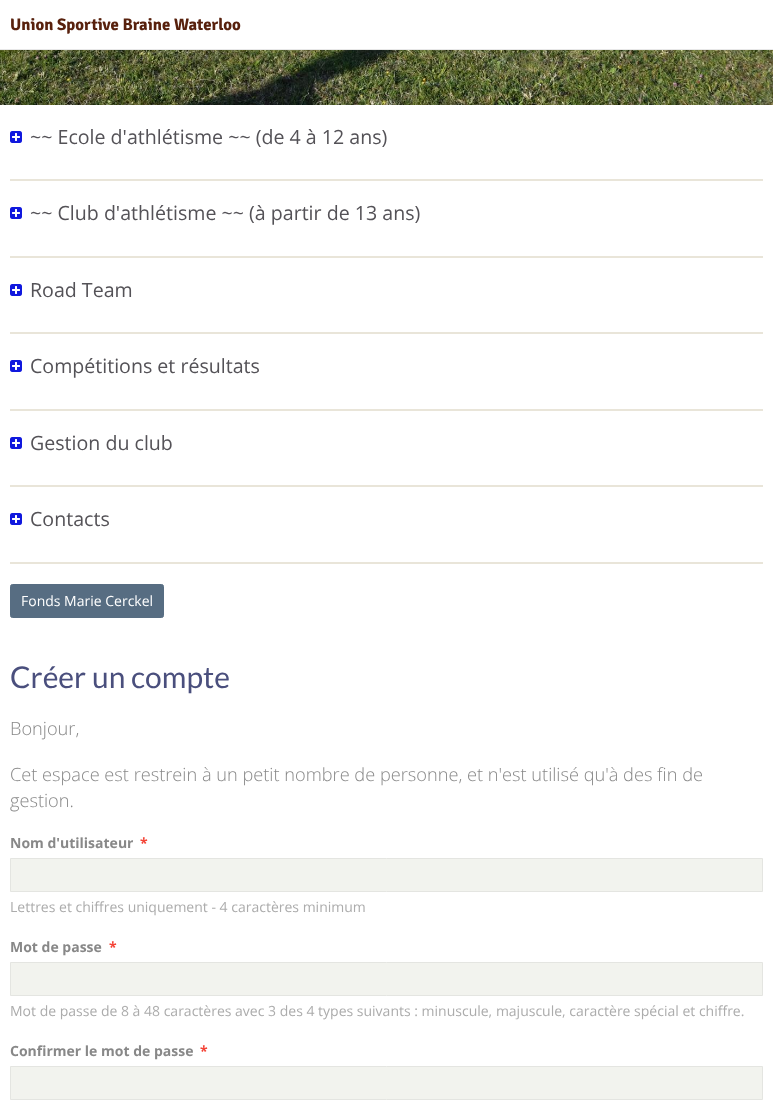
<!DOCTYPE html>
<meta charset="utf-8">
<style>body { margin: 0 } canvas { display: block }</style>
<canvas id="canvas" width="773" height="1119"></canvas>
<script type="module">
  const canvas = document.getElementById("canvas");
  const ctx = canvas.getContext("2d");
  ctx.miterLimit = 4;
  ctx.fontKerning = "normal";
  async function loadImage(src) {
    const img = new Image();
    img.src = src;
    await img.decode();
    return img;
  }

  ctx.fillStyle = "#ffffff";
  ctx.fillRect(0, 0, 773, 1119);
  ctx.fillStyle = "#e7e7e7";
  ctx.fillRect(0, 49, 773, 1);
  ctx.font = "bold 16.75px Signika";
  ctx.fillStyle = "#58210d";
  ctx.fillText("Union Sportive Braine Waterloo", 10, 30);
  ctx.drawImage(await loadImage("img1.png"), 0, 50, 773, 55);
  ctx.fillStyle = "#e9e5d9";
  ctx.fillRect(10, 179, 753, 2);
  ctx.drawImage(await loadImage("img2.png"), 10, 131, 12, 12);
  ctx.font = "19.6px Open Sans";
  ctx.fillStyle = "#545257";
  ctx.fillText("~~ Ecole d'athlétisme ~~ (de 4 à 12 ans)", 30, 144);
  ctx.fillStyle = "#e9e5d9";
  ctx.fillRect(10, 256, 753, 2);
  ctx.drawImage(await loadImage("img2.png"), 10, 207, 12, 12);
  ctx.fillStyle = "#545257";
  ctx.fillText("~~ Club d'athlétisme ~~ (à partir de 13 ans)", 30, 220);
  ctx.fillStyle = "#e9e5d9";
  ctx.fillRect(10, 332, 753, 2);
  ctx.drawImage(await loadImage("img2.png"), 10, 284, 12, 12);
  ctx.fillStyle = "#545257";
  ctx.fillText("Road Team", 30, 297);
  ctx.fillStyle = "#e9e5d9";
  ctx.fillRect(10, 409, 753, 2);
  ctx.drawImage(await loadImage("img2.png"), 10, 360, 12, 12);
  ctx.fillStyle = "#545257";
  ctx.fillText("Compétitions et résultats", 30, 373);
  ctx.fillStyle = "#e9e5d9";
  ctx.fillRect(10, 485, 753, 2);
  ctx.drawImage(await loadImage("img2.png"), 10, 437, 12, 12);
  ctx.fillStyle = "#545257";
  ctx.fillText("Gestion du club", 30, 450);
  ctx.fillStyle = "#e9e5d9";
  ctx.fillRect(10, 562, 753, 2);
  ctx.drawImage(await loadImage("img2.png"), 10, 513, 12, 12);
  ctx.fillStyle = "#545257";
  ctx.fillText("Contacts", 30, 526);
  ctx.fillStyle = "#576d82";
  ctx.beginPath();
  ctx.roundRect(10.5, 584.5, 153, 33, 2);
  ctx.fill();
  ctx.strokeStyle = "#576d82";
  ctx.stroke();
  ctx.font = "14px Open Sans";
  ctx.fillStyle = "#ffffff";
  ctx.fillText("Fonds Marie Cerckel", 21, 606);
  ctx.font = "30px Lato";
  ctx.fillStyle = "#4a4f7d";
  ctx.fillText("Créer un compte", 10, 688);
  ctx.font = "300 18.2px Open Sans";
  ctx.fillStyle = "#888888";
  ctx.fillText("Bonjour,", 10, 735);
  ctx.fillText("Cet espace est restrein à un petit nombre de personne, et n'est utilisé qu'à des fin de", 10, 781);
  ctx.fillText("gestion.", 10, 807);
  ctx.font = "bold 14px Open Sans";
  ctx.fillText("Nom d'utilisateur", 10, 848);
  ctx.fillStyle = "#f44336";
  ctx.fillText("*", 140, 848);
  ctx.fillStyle = "#f2f3ee";
  ctx.beginPath();
  ctx.rect(10.5, 858.5, 752, 33);
  ctx.fill();
  ctx.strokeStyle = "#e4e5e1";
  ctx.stroke();
  ctx.font = "14px Open Sans";
  ctx.fillStyle = "#acacac";
  ctx.fillText("Lettres et chiffres uniquement - 4 caractères minimum", 10, 912);
  ctx.font = "bold 14px Open Sans";
  ctx.fillStyle = "#888888";
  ctx.fillText("Mot de passe", 10, 952);
  ctx.fillStyle = "#f44336";
  ctx.fillText("*", 109, 952);
  ctx.fillStyle = "#f2f3ee";
  ctx.beginPath();
  ctx.rect(10.5, 962.5, 752, 33);
  ctx.fill();
  ctx.stroke();
  ctx.font = "14px Open Sans";
  ctx.fillStyle = "#acacac";
  ctx.fillText("Mot de passe de 8 à 48 caractères avec 3 des 4 types suivants : minuscule, majuscule, caractère spécial et chiffre.", 10, 1016);
  ctx.font = "bold 14px Open Sans";
  ctx.fillStyle = "#888888";
  ctx.fillText("Confirmer le mot de passe", 10, 1056);
  ctx.fillStyle = "#f44336";
  ctx.fillText("*", 200, 1056);
  ctx.fillStyle = "#f2f3ee";
  ctx.beginPath();
  ctx.rect(10.5, 1066.5, 752, 33);
  ctx.fill();
  ctx.stroke();
</script>
